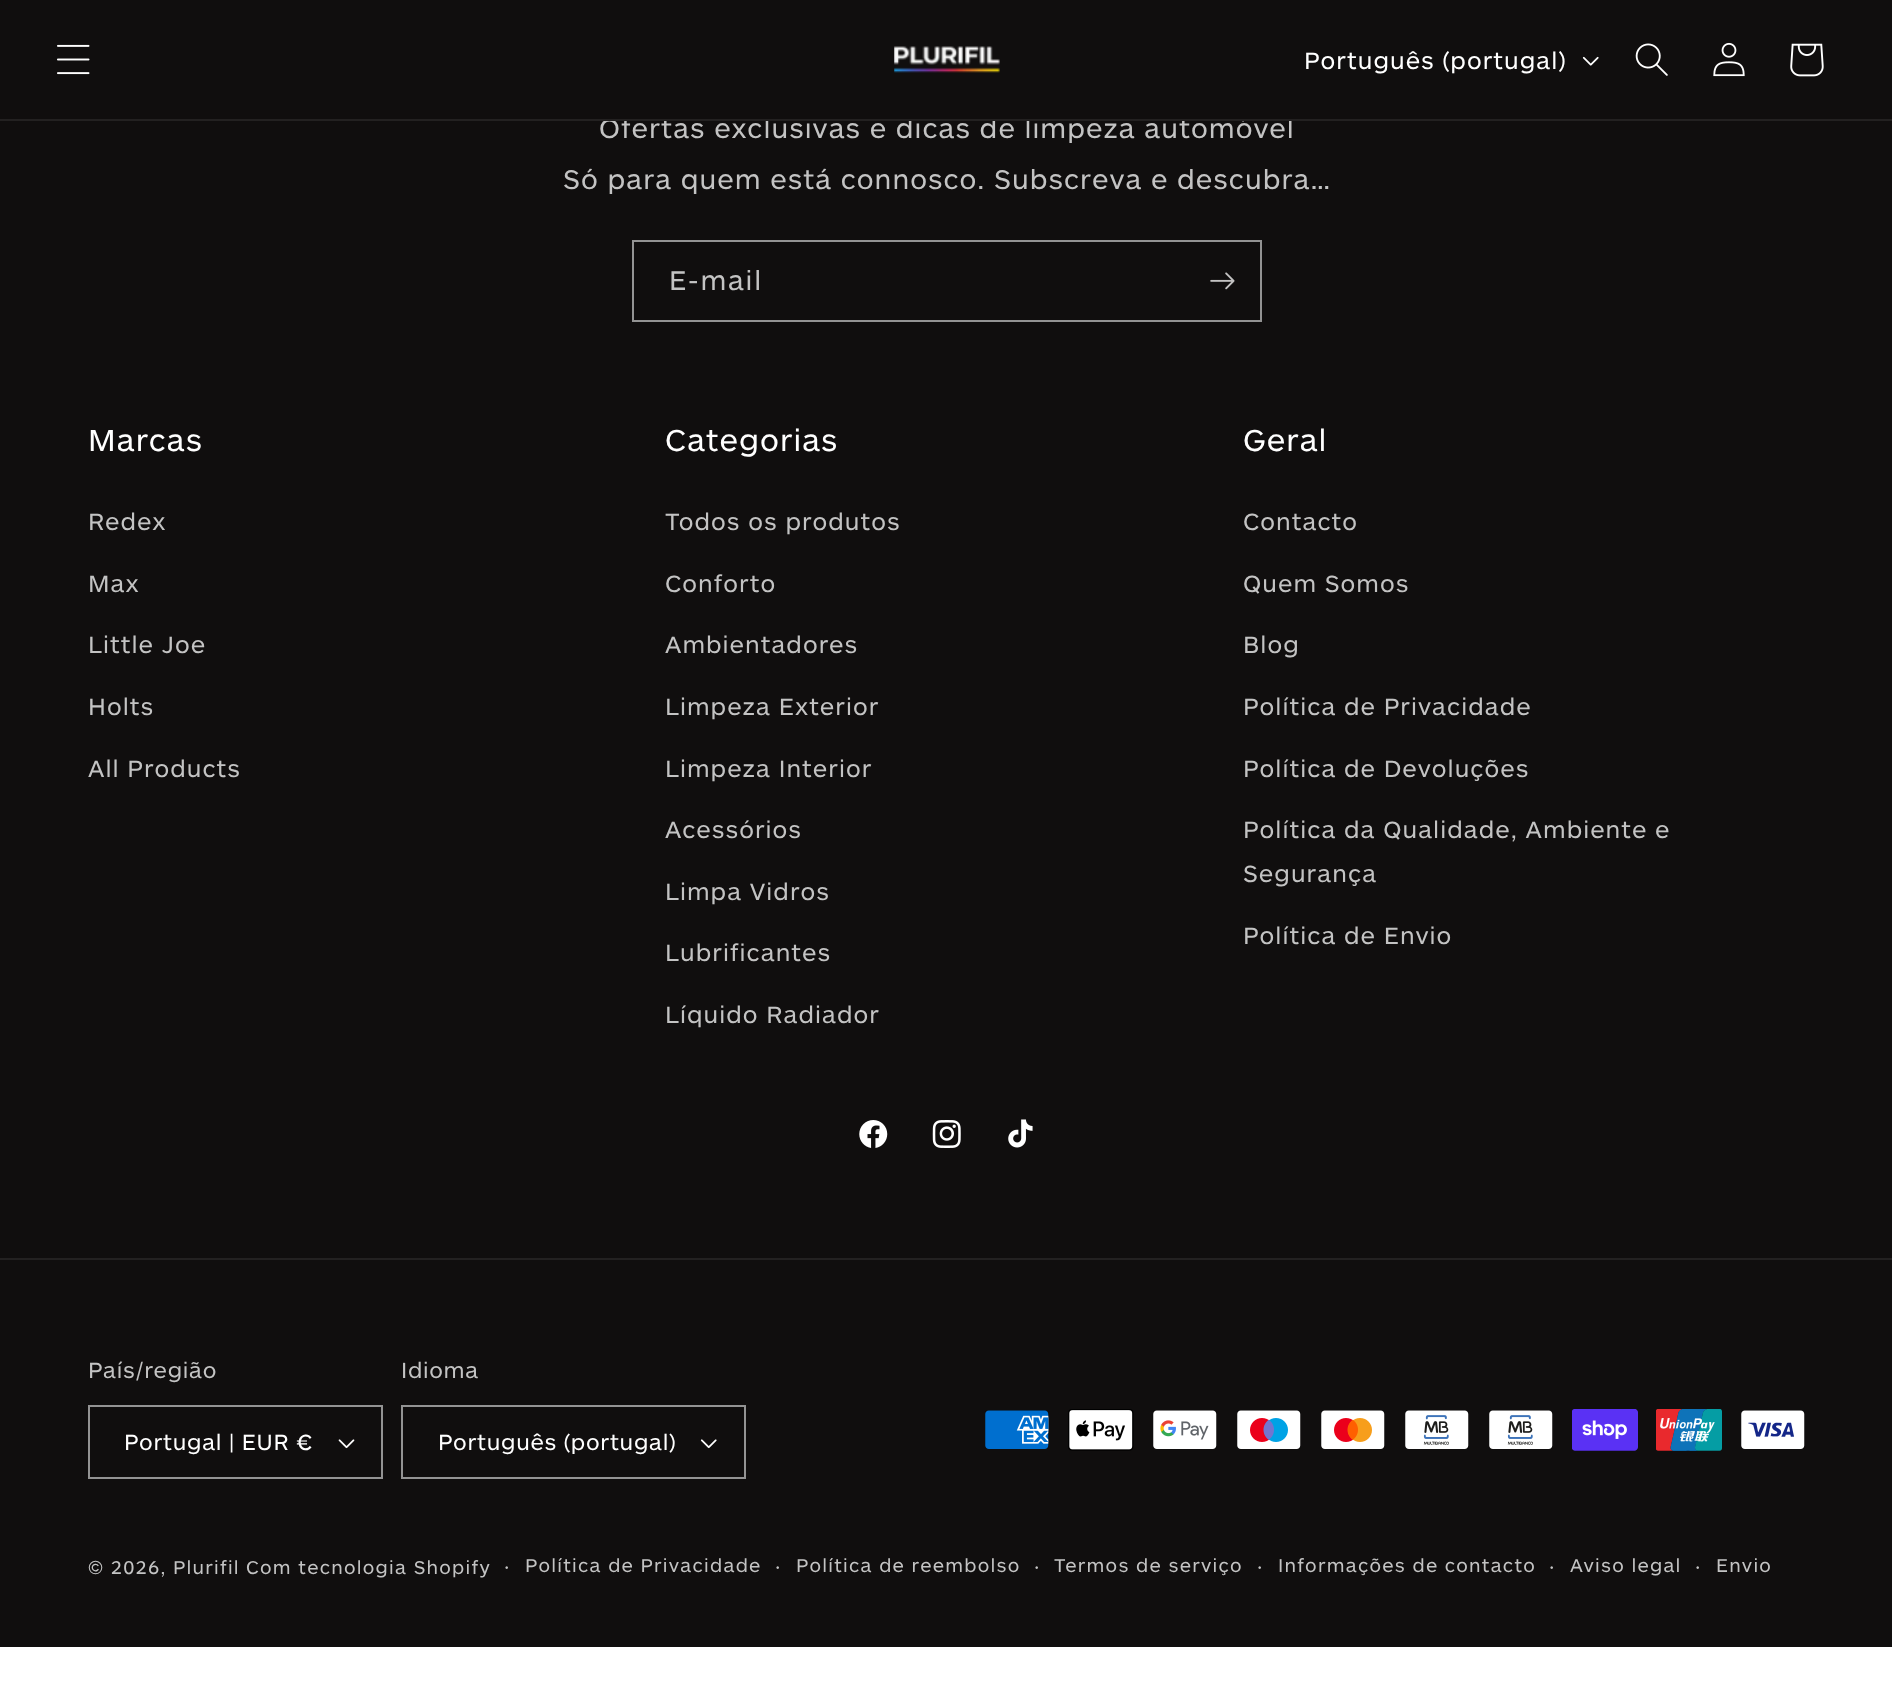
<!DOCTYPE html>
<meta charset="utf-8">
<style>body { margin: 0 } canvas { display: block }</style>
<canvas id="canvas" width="1892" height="1697"></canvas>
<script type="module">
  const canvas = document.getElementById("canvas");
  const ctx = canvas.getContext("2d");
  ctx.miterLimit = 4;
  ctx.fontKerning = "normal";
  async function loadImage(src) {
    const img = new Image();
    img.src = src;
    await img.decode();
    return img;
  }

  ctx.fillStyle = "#ffffff";
  ctx.fillRect(0, 0, 1892, 1697);
  ctx.fillStyle = "#100e0e";
  ctx.fillRect(0, 121, 1892, 1526);
  ctx.letterSpacing = "1.05px";
  ctx.font = "28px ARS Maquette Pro";
  ctx.fillStyle = "#c3c3c3";
  ctx.fillText("Ofertas exclusivas e dicas de limpeza automóvel", 599, 138);
  ctx.fillStyle = "#100e0e";
  ctx.fillRect(0, 0, 1892, 119);
  ctx.fillStyle = "#232121";
  ctx.fillRect(0, 119, 1892, 2);
  ctx.drawImage(await loadImage("img1.png"), 57, 44, 33, 31);
  ctx.drawImage(await loadImage("img2.png"), 894, 46, 106, 27);
  ctx.font = "24.5px ARS Maquette Pro";
  ctx.fillStyle = "#ffffff";
  ctx.fillText("Português (portugal)", 1304, 69);
  ctx.drawImage(await loadImage("img3.png"), 1582, 56, 17, 10);
  ctx.drawImage(await loadImage("img4.png"), 1635, 43, 33, 33);
  ctx.drawImage(await loadImage("img5.png"), 1713, 42, 32, 35);
  ctx.drawImage(await loadImage("img6.png"), 1790, 43, 34, 34);
  ctx.font = "28px ARS Maquette Pro";
  ctx.fillStyle = "#c3c3c3";
  ctx.fillText("Só para quem está connosco. Subscreva e descubra…", 563, 189);
  ctx.strokeStyle = "#939393";
  ctx.lineWidth = 2;
  ctx.strokeRect(633, 241, 628, 80);
  ctx.letterSpacing = "1.75px";
  ctx.fillText("E-mail", 669, 290);
  ctx.drawImage(await loadImage("img7.png"), 1210, 272, 25, 18);
  ctx.letterSpacing = "1.05px";
  ctx.font = "31.5px ARS Maquette Pro";
  ctx.fillStyle = "#ffffff";
  ctx.fillText("Marcas", 88, 451);
  ctx.font = "24.5px ARS Maquette Pro";
  ctx.fillStyle = "#c3c3c3";
  ctx.fillText("Redex", 88, 530);
  ctx.fillText("Max", 88, 592);
  ctx.fillText("Little Joe", 88, 653);
  ctx.fillText("Holts", 88, 715);
  ctx.fillText("All Products", 88, 777);
  ctx.font = "31.5px ARS Maquette Pro";
  ctx.fillStyle = "#ffffff";
  ctx.fillText("Categorias", 665, 451);
  ctx.font = "24.5px ARS Maquette Pro";
  ctx.fillStyle = "#c3c3c3";
  ctx.fillText("Todos os produtos", 665, 530);
  ctx.fillText("Conforto", 665, 592);
  ctx.fillText("Ambientadores", 665, 653);
  ctx.fillText("Limpeza Exterior", 665, 715);
  ctx.fillText("Limpeza Interior", 665, 777);
  ctx.fillText("Acessórios", 665, 838);
  ctx.fillText("Limpa Vidros", 665, 900);
  ctx.fillText("Lubrificantes", 665, 961);
  ctx.fillText("Líquido Radiador", 665, 1023);
  ctx.font = "31.5px ARS Maquette Pro";
  ctx.fillStyle = "#ffffff";
  ctx.fillText("Geral", 1243, 451);
  ctx.font = "24.5px ARS Maquette Pro";
  ctx.fillStyle = "#c3c3c3";
  ctx.fillText("Contacto", 1243, 530);
  ctx.fillText("Quem Somos", 1243, 592);
  ctx.fillText("Blog", 1243, 653);
  ctx.fillText("Política de Privacidade", 1243, 715);
  ctx.fillText("Política de Devoluções", 1243, 777);
  ctx.fillText("Política da Qualidade, Ambiente e", 1243, 838);
  ctx.fillText("Segurança", 1243, 882);
  ctx.fillText("Política de Envio", 1243, 944);
  ctx.drawImage(await loadImage("img8.png"), 859, 1120, 29, 28);
  ctx.drawImage(await loadImage("img9.png"), 932, 1120, 29, 28);
  ctx.drawImage(await loadImage("img10.png"), 1008, 1119, 25, 29);
  ctx.fillStyle = "#232121";
  ctx.fillRect(0, 1258, 1892, 2);
  ctx.letterSpacing = "0.7px";
  ctx.font = "22.75px ARS Maquette Pro";
  ctx.fillStyle = "#c3c3c3";
  ctx.fillText("País/região", 88, 1378);
  ctx.drawImage(await loadImage("img11.png"), 338, 1439, 17, 10);
  ctx.strokeRect(89, 1406, 293, 72);
  ctx.fillStyle = "#ffffff";
  ctx.fillText("Portugal | EUR €", 124, 1450);
  ctx.fillStyle = "#c3c3c3";
  ctx.fillText("Idioma", 401, 1378);
  ctx.drawImage(await loadImage("img12.png"), 700, 1439, 17, 10);
  ctx.strokeRect(402, 1406, 343, 72);
  ctx.fillStyle = "#ffffff";
  ctx.fillText("Português (portugal)", 438, 1450);
  ctx.drawImage(await loadImage("img13.png"), 985, 1410, 64, 39);
  ctx.drawImage(await loadImage("img14.png"), 1068, 1409, 66, 42);
  ctx.drawImage(await loadImage("img15.png"), 1153, 1410, 64, 39);
  ctx.drawImage(await loadImage("img16.png"), 1237, 1410, 64, 39);
  ctx.drawImage(await loadImage("img17.png"), 1321, 1410, 64, 39);
  ctx.drawImage(await loadImage("img18.png"), 1405, 1410, 64, 39);
  ctx.drawImage(await loadImage("img18.png"), 1489, 1410, 64, 39);
  ctx.drawImage(await loadImage("img19.png"), 1572, 1409, 66, 42);
  ctx.drawImage(await loadImage("img20.png"), 1656, 1409, 66, 42);
  ctx.drawImage(await loadImage("img21.png"), 1741, 1410, 64, 39);
  ctx.letterSpacing = "1.25px";
  ctx.font = "19.25px ARS Maquette Pro";
  ctx.fillStyle = "#c3c3c3";
  ctx.fillText("© 2026, Plurifil", 88, 1574);
  ctx.fillText("Com tecnologia Shopify", 246, 1574);
  ctx.font = "21px ARS Maquette Pro";
  ctx.fillText("·", 504, 1574);
  ctx.font = "19.25px ARS Maquette Pro";
  ctx.fillText("Política de Privacidade", 525, 1572);
  ctx.font = "21px ARS Maquette Pro";
  ctx.fillText("·", 775, 1574);
  ctx.font = "19.25px ARS Maquette Pro";
  ctx.fillText("Política de reembolso", 796, 1572);
  ctx.font = "21px ARS Maquette Pro";
  ctx.fillText("·", 1034, 1574);
  ctx.font = "19.25px ARS Maquette Pro";
  ctx.fillText("Termos de serviço", 1054, 1572);
  ctx.font = "21px ARS Maquette Pro";
  ctx.fillText("·", 1257, 1574);
  ctx.font = "19.25px ARS Maquette Pro";
  ctx.fillText("Informações de contacto", 1278, 1572);
  ctx.font = "21px ARS Maquette Pro";
  ctx.fillText("·", 1549, 1574);
  ctx.font = "19.25px ARS Maquette Pro";
  ctx.fillText("Aviso legal", 1570, 1572);
  ctx.font = "21px ARS Maquette Pro";
  ctx.fillText("·", 1695, 1574);
  ctx.font = "19.25px ARS Maquette Pro";
  ctx.fillText("Envio", 1716, 1572);
</script>
